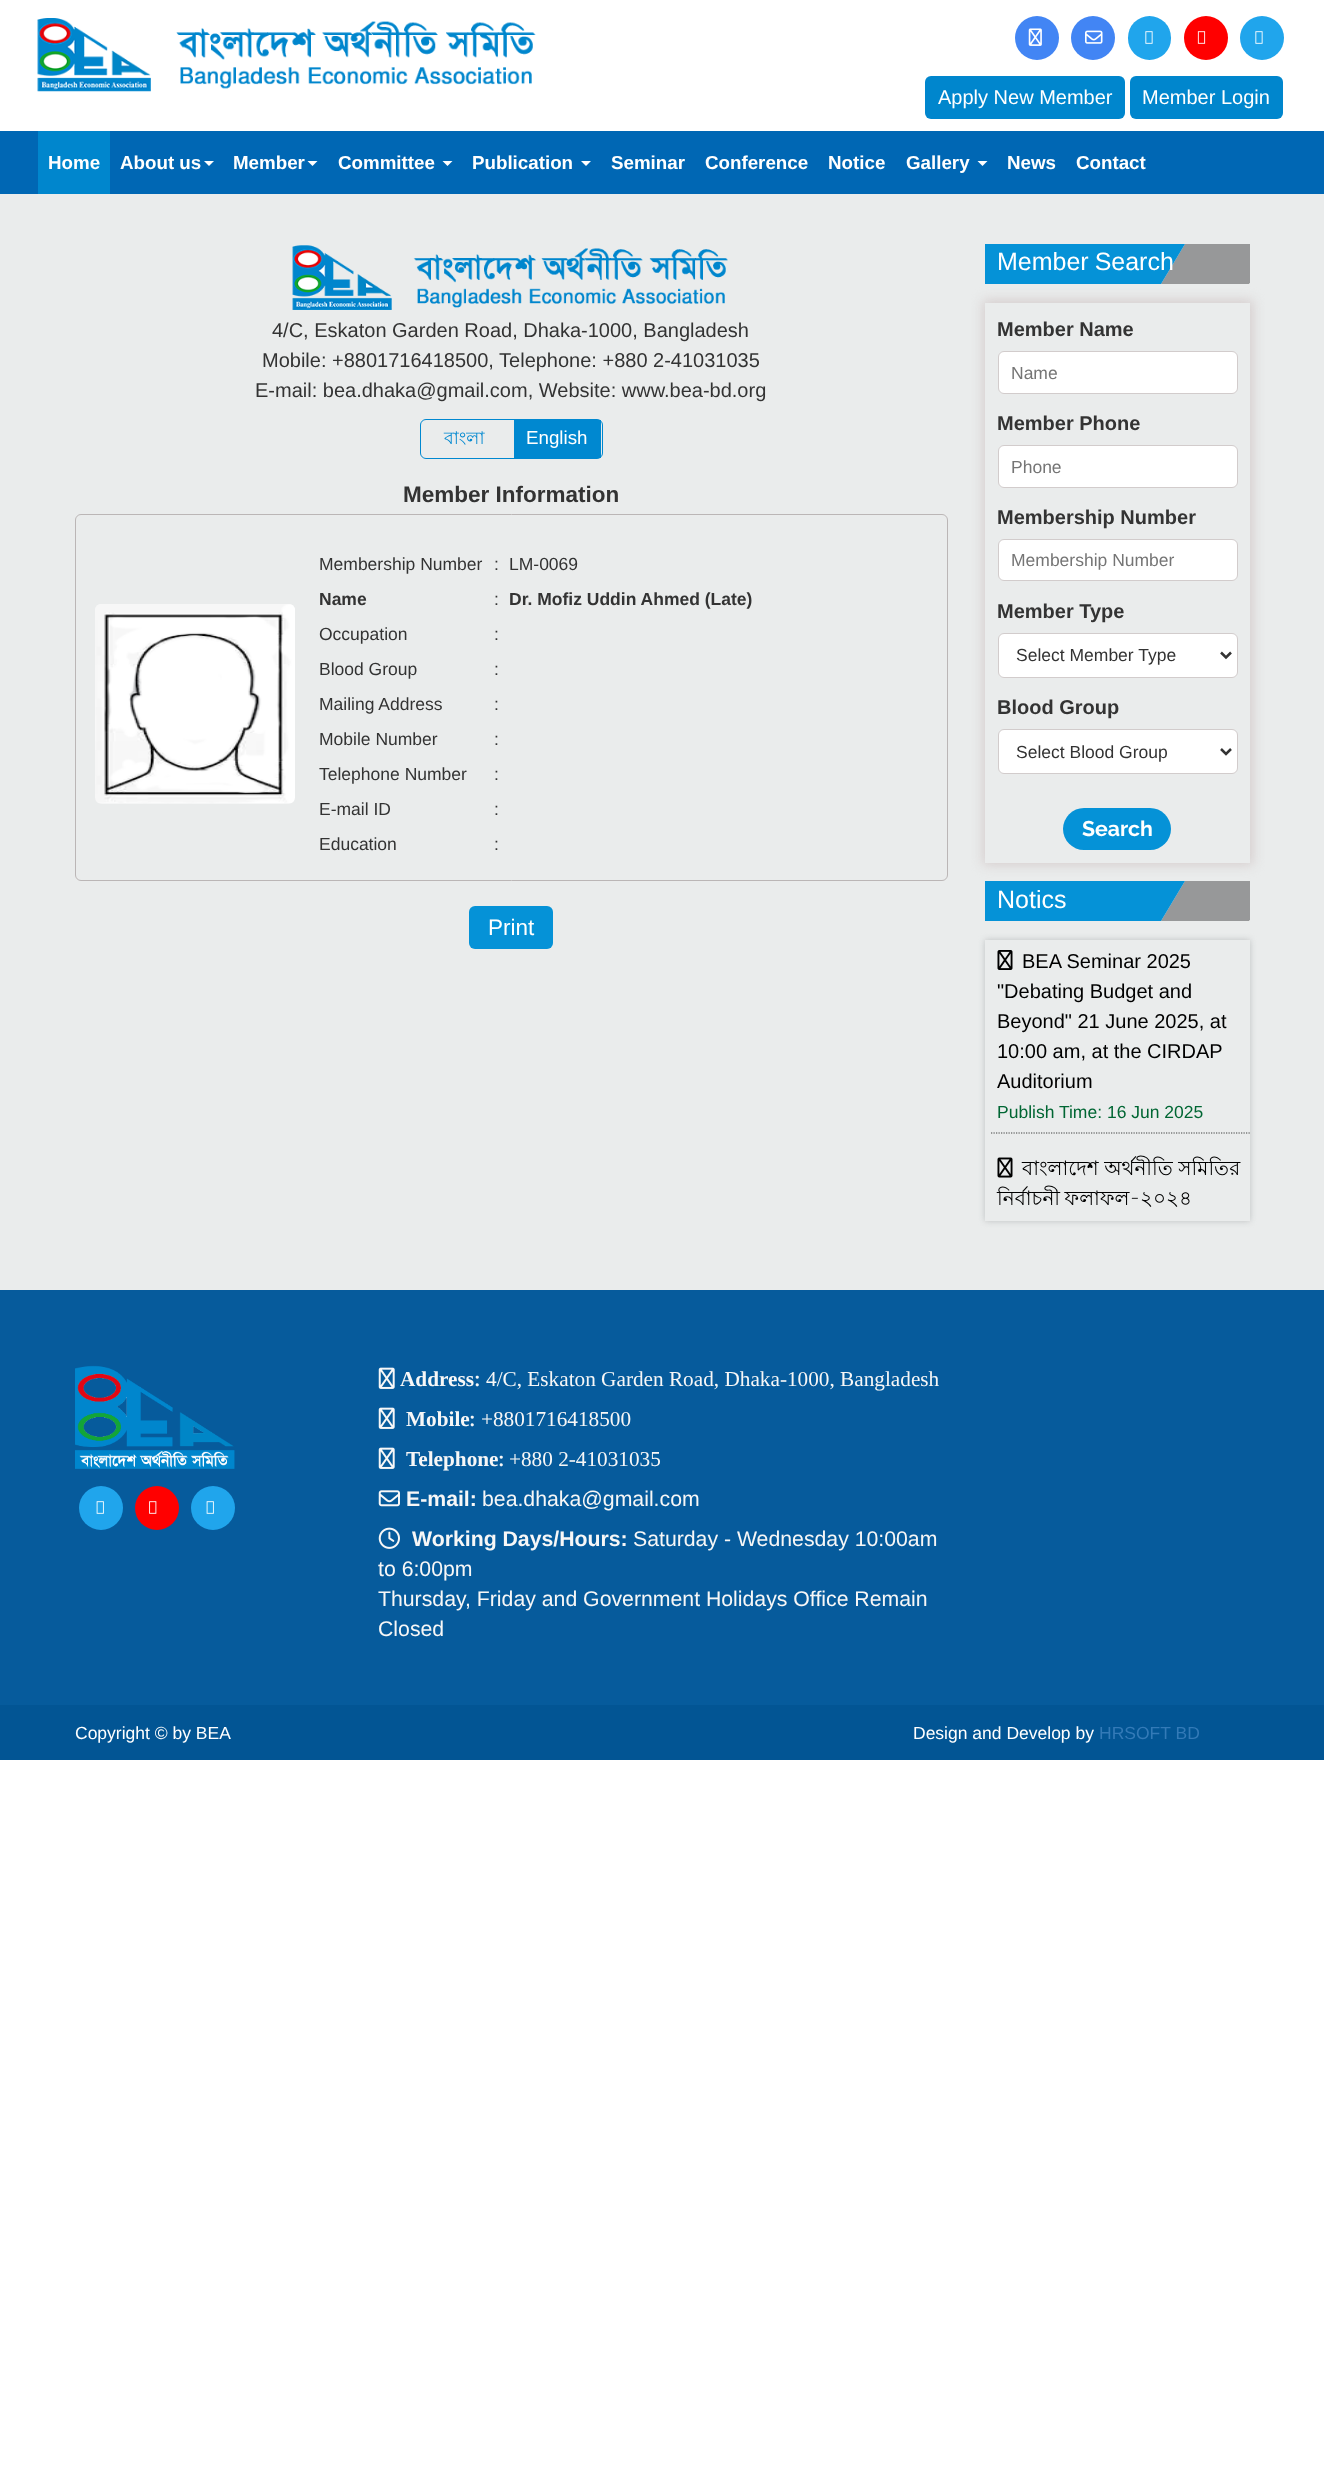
<!DOCTYPE html>
<meta charset="utf-8">
<style>body { margin: 0 } canvas { display: block }</style>
<canvas id="canvas" width="1324" height="2480"></canvas>
<script type="module">
  const canvas = document.getElementById("canvas");
  const ctx = canvas.getContext("2d");
  ctx.miterLimit = 4;
  ctx.fontKerning = "normal";
  async function loadImage(src) {
    const img = new Image();
    img.src = src;
    await img.decode();
    return img;
  }

  ctx.fillStyle = "#ffffff";
  ctx.fillRect(0, 0, 1324, 2480);
  ctx.drawImage(await loadImage("img1.png"), 37, 18, 499, 74);
  ctx.fillStyle = "#4285f4";
  ctx.beginPath();
  ctx.arc(1037, 38, 22, 0, Math.PI * 2);
  ctx.fill();
  ctx.drawImage(await loadImage("img2.png"), 1028, 28, 14, 18);
  ctx.beginPath();
  ctx.arc(1093, 38, 22, 0, Math.PI * 2);
  ctx.fill();
  ctx.drawImage(await loadImage("img3.png"), 1085, 30, 18, 14);
  ctx.fillStyle = "#20a5ec";
  ctx.beginPath();
  ctx.roundRect(1128, 16, 43, 44, 21.5);
  ctx.fill();
  ctx.drawImage(await loadImage("img4.png"), 1145, 31, 8, 13);
  ctx.fillStyle = "#ff0000";
  ctx.beginPath();
  ctx.arc(1206, 38, 22, 0, Math.PI * 2);
  ctx.fill();
  ctx.drawImage(await loadImage("img5.png"), 1197, 31, 9, 13);
  ctx.fillStyle = "#20a5ec";
  ctx.beginPath();
  ctx.arc(1262, 38, 22, 0, Math.PI * 2);
  ctx.fill();
  ctx.drawImage(await loadImage("img4.png"), 1255, 31, 8, 13);
  ctx.fillStyle = "#0086cd";
  ctx.beginPath();
  ctx.roundRect(925, 76, 200, 43, 6);
  ctx.fill();
  ctx.font = "20px Liberation Sans";
  ctx.fillStyle = "#ffffff";
  ctx.fillText("Apply New Member", 938, 104);
  ctx.fillStyle = "#0086cd";
  ctx.beginPath();
  ctx.roundRect(1130, 76, 153, 43, 6);
  ctx.fill();
  ctx.fillStyle = "#ffffff";
  ctx.fillText("Member Login", 1142, 104);
  ctx.fillStyle = "#0067b4";
  ctx.fillRect(0, 131, 1324, 63);
  ctx.fillStyle = "#0086cd";
  ctx.fillRect(38, 131, 72, 63);
  ctx.font = "bold 18.75px Liberation Sans";
  ctx.fillStyle = "#ffffff";
  ctx.fillText("Home", 48, 169);
  ctx.fillText("About us", 120, 169);
  ctx.beginPath();
  ctx.moveTo(204, 161);
  ctx.lineTo(214, 161);
  ctx.lineTo(209, 166);
  ctx.closePath();
  ctx.fill();
  ctx.fillText("Member", 233, 169);
  ctx.beginPath();
  ctx.moveTo(307.5, 161);
  ctx.lineTo(317.5, 161);
  ctx.lineTo(312.5, 166);
  ctx.closePath();
  ctx.fill();
  ctx.fillText("Committee", 338, 169);
  ctx.beginPath();
  ctx.moveTo(442.5, 161);
  ctx.lineTo(452.5, 161);
  ctx.lineTo(447.5, 166);
  ctx.closePath();
  ctx.fill();
  ctx.fillText("Publication", 472, 169);
  ctx.beginPath();
  ctx.moveTo(581, 161);
  ctx.lineTo(591, 161);
  ctx.lineTo(586, 166);
  ctx.closePath();
  ctx.fill();
  ctx.fillText("Seminar", 611, 169);
  ctx.fillText("Conference", 705, 169);
  ctx.fillText("Notice", 828, 169);
  ctx.fillText("Gallery", 906, 169);
  ctx.beginPath();
  ctx.moveTo(977.5, 161);
  ctx.lineTo(987.5, 161);
  ctx.lineTo(982.5, 166);
  ctx.closePath();
  ctx.fill();
  ctx.fillText("News", 1007, 169);
  ctx.fillText("Contact", 1076, 169);
  ctx.fillStyle = "#eaecec";
  ctx.fillRect(0, 194, 1324, 1096);
  ctx.drawImage(await loadImage("img6.png"), 292, 245, 436, 65);
  ctx.font = "20px Liberation Sans";
  ctx.fillStyle = "#333333";
  ctx.fillText("4/C, Eskaton Garden Road, Dhaka-1000, Bangladesh", 272, 337);
  ctx.fillText("Mobile: +8801716418500, Telephone: +880 2-41031035", 262, 367);
  ctx.fillText("E-mail: bea.dhaka@gmail.com, Website: www.bea-bd.org", 255, 397);
  ctx.beginPath();
  ctx.roundRect(420.5, 419.5, 182, 39, 5.5);
  ctx.strokeStyle = "#0088d0";
  ctx.stroke();
  ctx.font = "17.5px Lohit Bengali";
  ctx.fillStyle = "#0088d0";
  ctx.fillText("বাংলা", 444, 444);
  ctx.fillRect(514, 420, 87, 38);
  ctx.font = "18.75px Liberation Sans";
  ctx.fillStyle = "#ffffff";
  ctx.fillText("English", 526, 444);
  ctx.font = "bold 22.5px Liberation Sans";
  ctx.fillStyle = "#333333";
  ctx.fillText("Member Information", 403, 502);
  ctx.beginPath();
  ctx.roundRect(75.5, 514.5, 872, 366, 5.5);
  ctx.strokeStyle = "#bbb6b6";
  ctx.stroke();
  ctx.drawImage(await loadImage("img7.png"), 95, 604, 200, 200);
  ctx.font = "17.5px Liberation Sans";
  ctx.fillText("Membership Number", 319, 570);
  ctx.fillText(":", 494, 570);
  ctx.fillText("LM-0069", 509, 570);
  ctx.font = "bold 17.5px Liberation Sans";
  ctx.fillText("Name", 319, 605);
  ctx.font = "17.5px Liberation Sans";
  ctx.fillText(":", 494, 605);
  ctx.font = "bold 17.5px Liberation Sans";
  ctx.fillText("Dr. Mofiz Uddin Ahmed (Late)", 509, 605);
  ctx.font = "17.5px Liberation Sans";
  ctx.fillText("Occupation", 319, 640);
  ctx.fillText(":", 494, 640);
  ctx.fillText("Blood Group", 319, 675);
  ctx.fillText(":", 494, 675);
  ctx.fillText("Mailing Address", 319, 710);
  ctx.fillText(":", 494, 710);
  ctx.fillText("Mobile Number", 319, 745);
  ctx.fillText(":", 494, 745);
  ctx.fillText("Telephone Number", 319, 780);
  ctx.fillText(":", 494, 780);
  ctx.fillText("E-mail ID", 319, 815);
  ctx.fillText(":", 494, 815);
  ctx.fillText("Education", 319, 850);
  ctx.fillText(":", 494, 850);
  ctx.fillStyle = "#0592d7";
  ctx.beginPath();
  ctx.roundRect(469, 906, 84, 43, 6);
  ctx.fill();
  ctx.font = "22.5px Liberation Sans";
  ctx.fillStyle = "#ffffff";
  ctx.fillText("Print", 488, 935);
  ctx.save();
  ctx.beginPath();
  ctx.moveTo(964, 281);
  ctx.lineTo(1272, 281);
  ctx.lineTo(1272, 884);
  ctx.lineTo(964, 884);
  ctx.closePath();
  ctx.moveTo(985, 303);
  ctx.lineTo(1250, 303);
  ctx.lineTo(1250, 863);
  ctx.lineTo(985, 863);
  ctx.closePath();
  ctx.clip("evenodd");
  ctx.fillStyle = "#d5cdcd";
  ctx.filter = "blur(6px)";
  ctx.beginPath();
  ctx.rect(983, 300, 270, 565);
  ctx.fill();
  ctx.filter = "none";
  ctx.restore();
  ctx.save();
  ctx.beginPath();
  ctx.rect(985, 244, 265, 40);
  ctx.clip();
  ctx.fillStyle = "#979899";
  ctx.beginPath();
  ctx.moveTo(1185, 244);
  ctx.lineTo(1272, 244);
  ctx.lineTo(1249, 284);
  ctx.lineTo(1161, 284);
  ctx.closePath();
  ctx.fill();
  ctx.fillStyle = "#0592d7";
  ctx.beginPath();
  ctx.moveTo(985, 244);
  ctx.lineTo(1185, 244);
  ctx.lineTo(1161, 284);
  ctx.lineTo(962, 284);
  ctx.closePath();
  ctx.fill();
  ctx.restore();
  ctx.wordSpacing = "-1px";
  ctx.font = "25px Liberation Sans";
  ctx.fillText("Member Search", 997, 270);
  ctx.wordSpacing = "0px";
  ctx.font = "bold 20px Liberation Sans";
  ctx.fillStyle = "#333333";
  ctx.fillText("Member Name", 997, 336);
  ctx.fillStyle = "#ffffff";
  ctx.beginPath();
  ctx.roundRect(998.5, 351.5, 239, 42, 5.5);
  ctx.fill();
  ctx.strokeStyle = "#d2cccc";
  ctx.stroke();
  ctx.font = "17.5px Liberation Sans";
  ctx.fillStyle = "#757575";
  ctx.fillText("Name", 1011, 379);
  ctx.font = "bold 20px Liberation Sans";
  ctx.fillStyle = "#333333";
  ctx.fillText("Member Phone", 997, 430);
  ctx.fillStyle = "#ffffff";
  ctx.beginPath();
  ctx.roundRect(998.5, 445.5, 239, 42, 5.5);
  ctx.fill();
  ctx.stroke();
  ctx.font = "17.5px Liberation Sans";
  ctx.fillStyle = "#757575";
  ctx.fillText("Phone", 1011, 473);
  ctx.font = "bold 20px Liberation Sans";
  ctx.fillStyle = "#333333";
  ctx.fillText("Membership Number", 997, 524);
  ctx.fillStyle = "#ffffff";
  ctx.beginPath();
  ctx.roundRect(998.5, 539.5, 239, 41, 5.5);
  ctx.fill();
  ctx.stroke();
  ctx.font = "17.5px Liberation Sans";
  ctx.fillStyle = "#757575";
  ctx.fillText("Membership Number", 1011, 566);
  ctx.font = "bold 20px Liberation Sans";
  ctx.fillStyle = "#333333";
  ctx.fillText("Member Type", 997, 618);
  ctx.fillStyle = "#ffffff";
  ctx.beginPath();
  ctx.roundRect(998.5, 633.5, 239, 44, 5.5);
  ctx.fill();
  ctx.stroke();
  ctx.beginPath();
  ctx.moveTo(1221, 652.5);
  ctx.lineTo(1226, 657.5);
  ctx.lineTo(1231, 652.5);
  ctx.strokeStyle = "#333333";
  ctx.lineWidth = 2.5;
  ctx.stroke();
  ctx.font = "17.5px Liberation Sans";
  ctx.fillStyle = "#333333";
  ctx.fillText("Select Member Type", 1016, 661);
  ctx.font = "bold 20px Liberation Sans";
  ctx.fillText("Blood Group", 997, 714);
  ctx.fillStyle = "#ffffff";
  ctx.beginPath();
  ctx.roundRect(998.5, 729.5, 239, 44, 5.5);
  ctx.fill();
  ctx.strokeStyle = "#d2cccc";
  ctx.lineWidth = 1;
  ctx.stroke();
  ctx.beginPath();
  ctx.moveTo(1221, 749);
  ctx.lineTo(1226, 754);
  ctx.lineTo(1231, 749);
  ctx.strokeStyle = "#333333";
  ctx.lineWidth = 2.5;
  ctx.stroke();
  ctx.font = "17.5px Liberation Sans";
  ctx.fillStyle = "#333333";
  ctx.fillText("Select Blood Group", 1016, 758);
  ctx.fillStyle = "#0592d7";
  ctx.beginPath();
  ctx.roundRect(1063, 808, 108, 42, 21);
  ctx.fill();
  ctx.font = "bold 21.25px Raleway";
  ctx.fillStyle = "#ffffff";
  ctx.fillText("Search", 1082, 836);
  ctx.save();
  ctx.beginPath();
  ctx.rect(985, 881, 265, 40);
  ctx.clip();
  ctx.fillStyle = "#979899";
  ctx.beginPath();
  ctx.moveTo(1185, 881);
  ctx.lineTo(1272, 881);
  ctx.lineTo(1249, 921);
  ctx.lineTo(1161, 921);
  ctx.closePath();
  ctx.fill();
  ctx.fillStyle = "#0592d7";
  ctx.beginPath();
  ctx.moveTo(985, 881);
  ctx.lineTo(1185, 881);
  ctx.lineTo(1161, 921);
  ctx.lineTo(962, 921);
  ctx.closePath();
  ctx.fill();
  ctx.restore();
  ctx.font = "25px Liberation Sans";
  ctx.fillText("Notics", 997, 908);
  ctx.save();
  ctx.beginPath();
  ctx.moveTo(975, 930);
  ctx.lineTo(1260, 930);
  ctx.lineTo(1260, 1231);
  ctx.lineTo(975, 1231);
  ctx.closePath();
  ctx.moveTo(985, 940);
  ctx.lineTo(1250, 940);
  ctx.lineTo(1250, 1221);
  ctx.lineTo(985, 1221);
  ctx.closePath();
  ctx.clip("evenodd");
  ctx.fillStyle = "#bdc0c1";
  ctx.filter = "blur(3px)";
  ctx.beginPath();
  ctx.rect(985, 940, 265, 281);
  ctx.fill();
  ctx.filter = "none";
  ctx.restore();
  ctx.beginPath();
  ctx.moveTo(991, 1133);
  ctx.lineTo(1250, 1133);
  ctx.strokeStyle = "#424242";
  ctx.lineWidth = 1.2;
  ctx.setLineDash([1.25, 1.25]);
  ctx.stroke();
  ctx.drawImage(await loadImage("img8.png"), 997, 950, 16, 20);
  ctx.font = "20px Liberation Sans";
  ctx.fillStyle = "#000000";
  ctx.fillText("BEA Seminar 2025", 1022, 968);
  ctx.fillText("\"Debating Budget and", 997, 998);
  ctx.fillText("Beyond\" 21 June 2025, at", 997, 1028);
  ctx.fillText("10:00 am, at the CIRDAP", 997, 1058);
  ctx.fillText("Auditorium", 997, 1088);
  ctx.font = "17.5px Liberation Sans";
  ctx.fillStyle = "#006633";
  ctx.fillText("Publish Time: 16 Jun 2025", 997, 1118);
  ctx.drawImage(await loadImage("img9.png"), 997, 1157, 16, 21);
  ctx.font = "20px Lohit Bengali";
  ctx.fillStyle = "#000000";
  ctx.fillText("বাংলাদেশ অর্থনীতি সমিতির", 1022, 1175);
  ctx.wordSpacing = "-1px";
  ctx.fillText("নির্বাচনী ফলাফল-২০২৪", 997, 1205);
  ctx.fillStyle = "#065b9c";
  ctx.fillRect(0, 1290, 1324, 415);
  ctx.drawImage(await loadImage("img10.png"), 75, 1365, 160, 104);
  ctx.fillStyle = "#20a5ec";
  ctx.beginPath();
  ctx.arc(101, 1508, 22, 0, Math.PI * 2);
  ctx.fill();
  ctx.drawImage(await loadImage("img11.png"), 96, 1501, 8, 13);
  ctx.fillStyle = "#ff0000";
  ctx.beginPath();
  ctx.arc(157, 1508, 22, 0, Math.PI * 2);
  ctx.fill();
  ctx.drawImage(await loadImage("img12.png"), 149, 1501, 8, 13);
  ctx.fillStyle = "#20a5ec";
  ctx.beginPath();
  ctx.arc(213, 1508, 22, 0, Math.PI * 2);
  ctx.fill();
  ctx.drawImage(await loadImage("img11.png"), 206, 1501, 8, 13);
  ctx.drawImage(await loadImage("img13.png"), 378, 1367, 17, 22);
  ctx.wordSpacing = "0px";
  ctx.font = "bold 21.25px Liberation Serif";
  ctx.fillStyle = "#f7f7f7";
  ctx.fillText("Address", 400, 1386);
  ctx.font = "bold 21.25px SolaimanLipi";
  ctx.fillText(":", 474, 1386);
  ctx.font = "21.25px Liberation Serif";
  ctx.fillText("4/C, Eskaton Garden Road, Dhaka-1000, Bangladesh", 486, 1386);
  ctx.drawImage(await loadImage("img13.png"), 378, 1407, 17, 22);
  ctx.font = "bold 21.25px Liberation Serif";
  ctx.fillText("Mobile", 406, 1426);
  ctx.font = "bold 21.25px SolaimanLipi";
  ctx.fillText(":", 469, 1426);
  ctx.font = "21.25px Liberation Serif";
  ctx.fillText("+8801716418500", 481, 1426);
  ctx.drawImage(await loadImage("img13.png"), 378, 1447, 17, 22);
  ctx.font = "bold 21.25px Liberation Serif";
  ctx.fillText("Telephone", 406, 1466);
  ctx.font = "bold 21.25px SolaimanLipi";
  ctx.fillText(":", 498, 1466);
  ctx.font = "21.25px Liberation Serif";
  ctx.fillText("+880 2-41031035", 509, 1466);
  ctx.drawImage(await loadImage("img14.png"), 378, 1490, 22, 17);
  ctx.font = "bold 21.25px Liberation Sans";
  ctx.fillText("E-mail:", 406, 1506);
  ctx.font = "21.25px Liberation Sans";
  ctx.fillText("bea.dhaka@gmail.com", 482, 1506);
  ctx.drawImage(await loadImage("img15.png"), 378, 1527, 22, 22);
  ctx.font = "bold 21.25px Liberation Sans";
  ctx.fillText("Working Days/Hours:", 412, 1546);
  ctx.font = "21.25px Liberation Sans";
  ctx.fillText("Saturday - Wednesday 10:00am", 633, 1546);
  ctx.fillText("to 6:00pm", 378, 1576);
  ctx.fillText("Thursday, Friday and Government Holidays Office Remain", 378, 1606);
  ctx.fillText("Closed", 378, 1636);
  ctx.fillStyle = "#025594";
  ctx.fillRect(0, 1705, 1324, 55);
  ctx.font = "17.5px Liberation Sans";
  ctx.fillStyle = "#ffffff";
  ctx.fillText("Copyright © by BEA", 75, 1739);
  ctx.fillText("Design and Develop by", 913, 1739);
  ctx.fillStyle = "#337ab7";
  ctx.fillText("HRSOFT BD", 1099, 1739);
</script>
